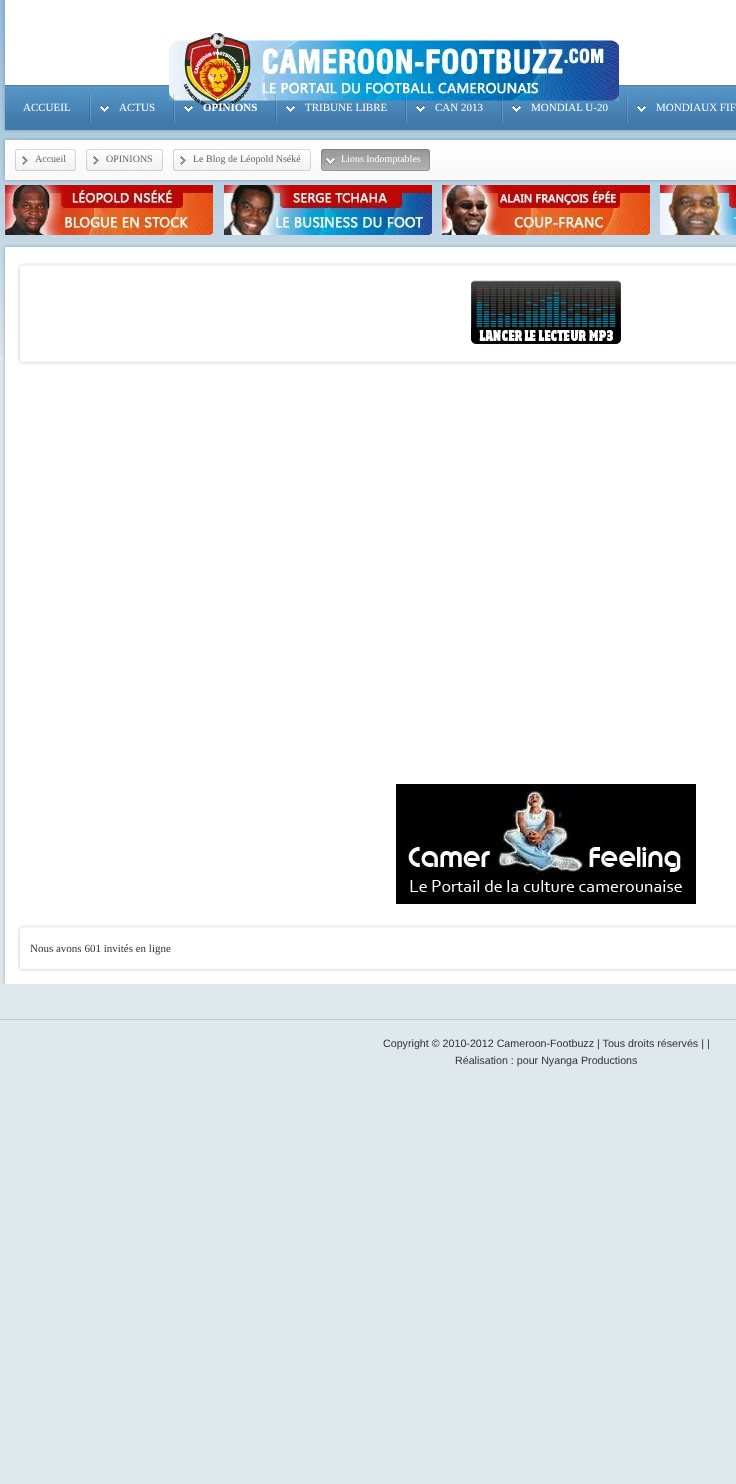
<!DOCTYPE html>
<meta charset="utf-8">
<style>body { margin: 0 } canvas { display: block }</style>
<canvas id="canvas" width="736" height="1484"></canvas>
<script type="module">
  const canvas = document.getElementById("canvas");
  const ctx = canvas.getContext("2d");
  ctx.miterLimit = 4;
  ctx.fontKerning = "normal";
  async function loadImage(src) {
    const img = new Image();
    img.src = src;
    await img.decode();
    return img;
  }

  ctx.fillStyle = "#dfe8ec";
  ctx.fillRect(0, 0, 736, 1484);
  ctx.drawImage(await loadImage("img1.png"), 0, 0, 736, 356);
  ctx.drawImage(await loadImage("img2.png"), 2, 0, 3, 85);
  ctx.fillStyle = "#ffffff";
  ctx.fillRect(5, 0, 731, 85);
  ctx.drawImage(await loadImage("img5.png"), 7, 85, 729, 48);
  ctx.drawImage(await loadImage("img3.png"), 169, 33, 450, 75);
  ctx.drawImage(await loadImage("img4.png"), 2, 85, 5, 47);
  ctx.drawImage(await loadImage("img6.png"), 89, 94, 2, 30);
  ctx.font = "11px Liberation Serif";
  ctx.fillText("ACCUEIL", 23, 111);
  ctx.drawImage(await loadImage("img7.png"), 173, 94, 2, 30);
  ctx.drawImage(await loadImage("img8.png"), 100, 105, 9, 7);
  ctx.fillText("ACTUS", 119, 111);
  ctx.drawImage(await loadImage("img9.png"), 275, 94, 2, 30);
  ctx.drawImage(await loadImage("img8.png"), 184, 105, 9, 7);
  ctx.font = "bold 11px Liberation Serif";
  ctx.fillText("OPINIONS", 203, 111);
  ctx.drawImage(await loadImage("img10.png"), 405, 94, 2, 30);
  ctx.drawImage(await loadImage("img8.png"), 286, 105, 9, 7);
  ctx.font = "11px Liberation Serif";
  ctx.fillText("TRIBUNE LIBRE", 305, 111);
  ctx.drawImage(await loadImage("img11.png"), 501, 94, 2, 30);
  ctx.drawImage(await loadImage("img8.png"), 416, 105, 9, 7);
  ctx.fillText("CAN 2013", 435, 111);
  ctx.drawImage(await loadImage("img6.png"), 626, 94, 2, 30);
  ctx.drawImage(await loadImage("img8.png"), 512, 105, 9, 7);
  ctx.fillText("MONDIAL U-20", 531, 111);
  ctx.drawImage(await loadImage("img8.png"), 637, 105, 9, 7);
  ctx.fillText("MONDIAUX FIF", 656, 111);
  ctx.drawImage(await loadImage("img12.png"), 2, 137, 8, 46);
  ctx.drawImage(await loadImage("img13.png"), 10, 137, 726, 46);
  ctx.drawImage(await loadImage("img14.png"), 15, 149, 15, 22);
  ctx.drawImage(await loadImage("img15.png"), 65, 149, 11, 22);
  ctx.drawImage(await loadImage("img16.png"), 30, 149, 35, 22);
  ctx.font = "10px Liberation Serif";
  ctx.fillStyle = "#646464";
  ctx.fillText("Accueil", 35, 162);
  ctx.drawImage(await loadImage("img14.png"), 86, 149, 15, 22);
  ctx.drawImage(await loadImage("img15.png"), 152, 149, 11, 22);
  ctx.drawImage(await loadImage("img17.png"), 101, 149, 51, 22);
  ctx.fillText("OPINIONS", 106, 162);
  ctx.drawImage(await loadImage("img14.png"), 173, 149, 15, 22);
  ctx.drawImage(await loadImage("img15.png"), 300, 149, 11, 22);
  ctx.drawImage(await loadImage("img18.png"), 188, 149, 112, 22);
  ctx.fillText("Le Blog de Léopold Nséké", 193, 162);
  ctx.drawImage(await loadImage("img19.png"), 321, 149, 15, 22);
  ctx.drawImage(await loadImage("img20.png"), 415, 149, 15, 22);
  ctx.drawImage(await loadImage("img21.png"), 336, 149, 79, 22);
  ctx.fillStyle = "#ffffff";
  ctx.fillText("Lions Indomptables", 341, 162);
  ctx.drawImage(await loadImage("img22.png"), 5, 185, 208, 50);
  ctx.drawImage(await loadImage("img23.png"), 224, 185, 208, 50);
  ctx.drawImage(await loadImage("img24.png"), 442, 185, 208, 50);
  ctx.drawImage(await loadImage("img25.png"), 660, 185, 76, 50);
  ctx.drawImage(await loadImage("img26.png"), 3, 245, 4, 4);
  ctx.drawImage(await loadImage("img27.png"), 7, 244, 729, 5);
  ctx.drawImage(await loadImage("img28.png"), 2, 249, 3, 735);
  ctx.fillRect(5, 249, 731, 735);
  ctx.drawImage(await loadImage("img29.png"), 18, 264, 4, 4);
  ctx.fillStyle = "#f2f2f2";
  ctx.fillRect(22, 263, 714, 3);
  ctx.drawImage(await loadImage("img30.png"), 17, 268, 3, 92);
  ctx.drawImage(await loadImage("img31.png"), 471, 280, 150, 64);
  ctx.drawImage(await loadImage("img32.png"), 18, 360, 4, 4);
  ctx.drawImage(await loadImage("img33.png"), 22, 361, 714, 4);
  ctx.drawImage(await loadImage("img34.png"), 396, 784, 300, 120);
  ctx.drawImage(await loadImage("img29.png"), 18, 926, 4, 4);
  ctx.fillRect(22, 925, 714, 3);
  ctx.drawImage(await loadImage("img35.png"), 17, 930, 3, 37);
  ctx.font = "11px Liberation Serif";
  ctx.fillStyle = "#323232";
  ctx.fillText("Nous avons 601 invités en ligne", 30, 952);
  ctx.drawImage(await loadImage("img32.png"), 18, 967, 4, 4);
  ctx.drawImage(await loadImage("img33.png"), 22, 968, 714, 4);
  ctx.fillStyle = "#c8c8c8";
  ctx.fillRect(0, 1019, 736, 1);
  ctx.font = "10.7px Liberation Sans";
  ctx.fillStyle = "#323232";
  ctx.fillText("Copyright © 2010-2012 Cameroon-Footbuzz | Tous droits réservés | |", 383, 1047);
  ctx.fillText("Réalisation : pour Nyanga Productions", 455, 1064);
</script>
